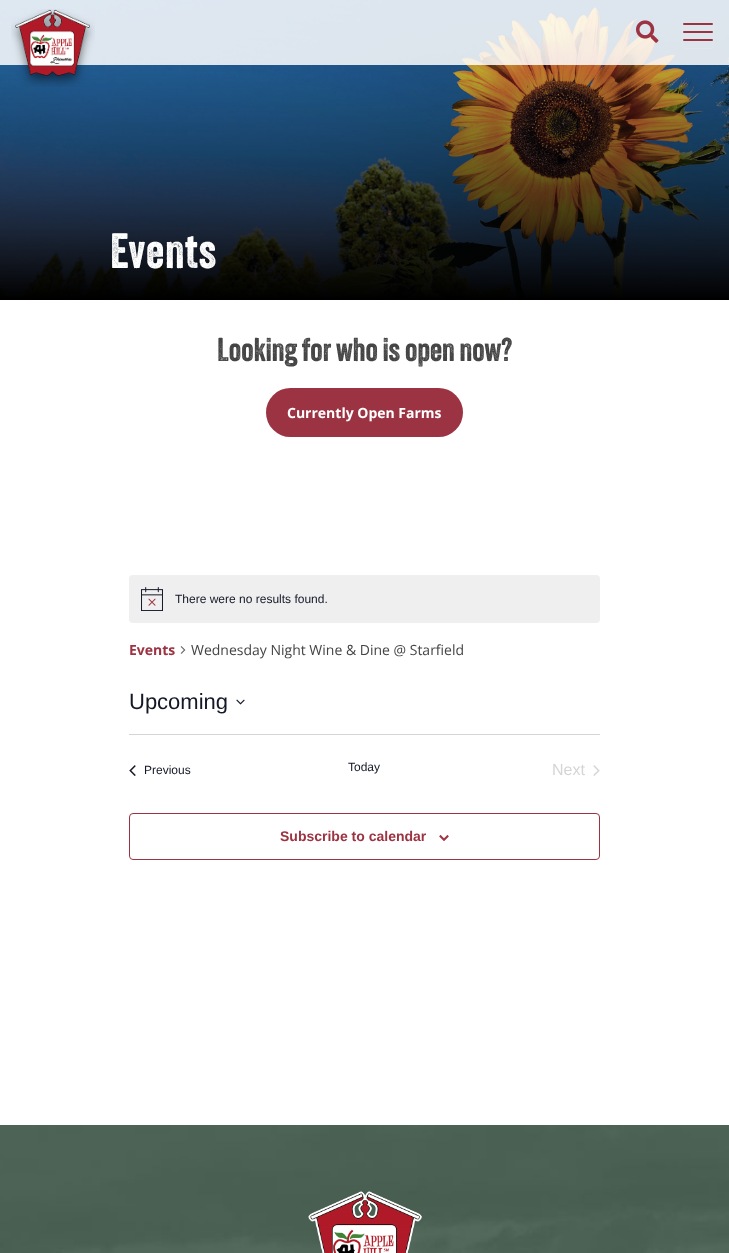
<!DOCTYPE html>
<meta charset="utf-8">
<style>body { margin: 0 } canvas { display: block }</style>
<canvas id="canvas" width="729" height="1253"></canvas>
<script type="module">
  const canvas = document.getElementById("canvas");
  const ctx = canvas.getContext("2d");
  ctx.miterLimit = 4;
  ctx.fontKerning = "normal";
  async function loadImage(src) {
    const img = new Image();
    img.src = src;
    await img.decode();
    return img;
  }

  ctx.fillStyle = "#ffffff";
  ctx.fillRect(0, 0, 729, 1253);
  ctx.drawImage(await loadImage("img3.png"), 0, 0, 729, 300);
  ctx.fillStyle = "rgba(255, 255, 255, 0.85)";
  ctx.fillRect(0, 0, 729, 65);
  ctx.drawImage(await loadImage("img1.png"), 11, 9, 84, 78);
  ctx.drawImage(await loadImage("img2.png"), 636, 20, 23, 23);
  ctx.beginPath();
  ctx.roundRect(682.5, 17.5, 31, 31, 3.5);
  ctx.strokeStyle = "#e1e7ef";
  ctx.stroke();
  ctx.fillStyle = "#9c3342";
  ctx.beginPath();
  ctx.roundRect(683, 23, 30, 2, 1);
  ctx.fill();
  ctx.beginPath();
  ctx.roundRect(683, 31, 30, 2, 1);
  ctx.fill();
  ctx.beginPath();
  ctx.roundRect(683, 39, 30, 2, 1);
  ctx.fill();
  ctx.letterSpacing = "1px";
  ctx.font = "48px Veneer";
  ctx.fillStyle = "#ffffff";
  ctx.fillText("Events", 110, 268);
  ctx.letterSpacing = "0px";
  ctx.font = "32px Veneer";
  ctx.fillStyle = "#444444";
  ctx.fillText("Looking for who is open now?", 217, 361);
  ctx.fillStyle = "#9c3342";
  ctx.beginPath();
  ctx.roundRect(266, 388, 197, 49, 24.5);
  ctx.fill();
  ctx.font = "bold 14px Open Sans";
  ctx.fillStyle = "#ffffff";
  ctx.fillText("Currently Open Farms", 287, 418);
  ctx.fillStyle = "#efeff0";
  ctx.beginPath();
  ctx.roundRect(129, 575, 471, 48, 4);
  ctx.fill();
  ctx.drawImage(await loadImage("img4.png"), 141, 587, 22, 24);
  ctx.font = "12px Liberation Sans";
  ctx.fillStyle = "#141827";
  ctx.fillText("There were no results found.", 175, 603);
  ctx.font = "bold 14px Open Sans";
  ctx.fillStyle = "#9c3342";
  ctx.fillText("Events", 129, 655);
  ctx.drawImage(await loadImage("img5.png"), 180, 646, 6, 8);
  ctx.font = "14px Open Sans";
  ctx.fillStyle = "#444444";
  ctx.fillText("Wednesday Night Wine & Dine @ Starfield", 191, 655);
  ctx.font = "22px Liberation Sans";
  ctx.fillStyle = "#141827";
  ctx.fillText("Upcoming", 129, 709);
  ctx.drawImage(await loadImage("img6.png"), 236, 699, 9, 6);
  ctx.fillStyle = "#d5d5d5";
  ctx.fillRect(129, 734, 471, 1);
  ctx.drawImage(await loadImage("img7.png"), 129, 765, 7, 11);
  ctx.font = "12px Liberation Sans";
  ctx.fillStyle = "#141827";
  ctx.fillText("Previous", 144, 774);
  ctx.fillText("Today", 348, 771);
  ctx.font = "16px Liberation Sans";
  ctx.fillStyle = "#d5d5d5";
  ctx.fillText("Next", 552, 775);
  ctx.drawImage(await loadImage("img8.png"), 593, 765, 7, 11);
  ctx.beginPath();
  ctx.roundRect(129.5, 813.5, 470, 46, 3.5);
  ctx.strokeStyle = "#9c3342";
  ctx.stroke();
  ctx.font = "bold 14px Liberation Sans";
  ctx.fillStyle = "#9c3342";
  ctx.fillText("Subscribe to calendar", 280, 841);
  ctx.drawImage(await loadImage("img9.png"), 439, 835, 10, 6);
  ctx.drawImage(await loadImage("img10.png"), 0, 1125, 729, 128);
  ctx.drawImage(await loadImage("img11.png"), 308, 1191, 114, 62);
</script>
